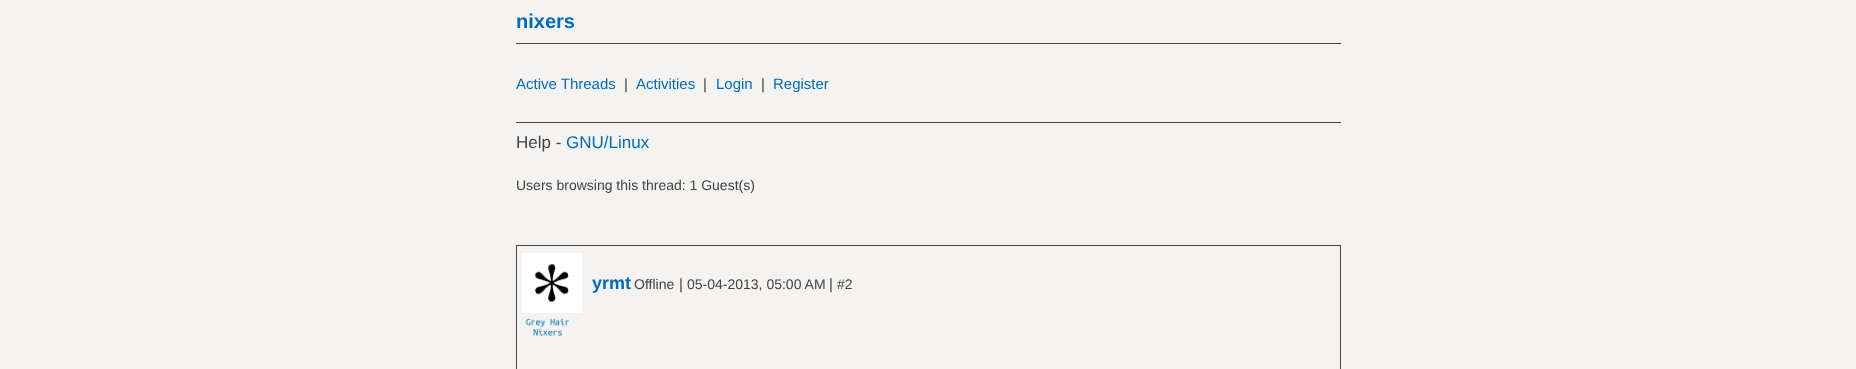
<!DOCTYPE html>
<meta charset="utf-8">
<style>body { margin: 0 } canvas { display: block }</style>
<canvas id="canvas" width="1856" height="369"></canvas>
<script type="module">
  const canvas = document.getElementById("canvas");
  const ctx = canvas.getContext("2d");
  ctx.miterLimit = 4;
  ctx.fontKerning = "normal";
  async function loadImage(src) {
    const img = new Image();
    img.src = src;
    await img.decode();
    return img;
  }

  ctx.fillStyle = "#f4f3f2";
  ctx.fillRect(0, 0, 1856, 369);
  ctx.font = "bold 20px Liberation Sans";
  ctx.fillStyle = "#026cb1";
  ctx.fillText("nixers", 516, 28);
  ctx.fillStyle = "#424242";
  ctx.fillRect(516, 43, 825, 1);
  ctx.font = "15px Liberation Sans";
  ctx.fillStyle = "#026cb1";
  ctx.fillText("Active Threads", 516, 89);
  ctx.fillStyle = "#424242";
  ctx.fillText("|", 624, 89);
  ctx.fillStyle = "#026cb1";
  ctx.fillText("Activities", 636, 89);
  ctx.fillStyle = "#424242";
  ctx.fillText("|", 703, 89);
  ctx.fillStyle = "#026cb1";
  ctx.fillText("Login", 716, 89);
  ctx.fillStyle = "#424242";
  ctx.fillText("|", 761, 89);
  ctx.fillStyle = "#026cb1";
  ctx.fillText("Register", 773, 89);
  ctx.fillStyle = "#424242";
  ctx.fillRect(516, 122, 825, 1);
  ctx.font = "17px Liberation Sans";
  ctx.fillText("Help -", 516, 148);
  ctx.fillStyle = "#026cb1";
  ctx.fillText("GNU/Linux", 566, 148);
  ctx.font = "14px Liberation Sans";
  ctx.fillStyle = "#424242";
  ctx.fillText("Users browsing this thread: 1 Guest(s)", 516, 190);
  ctx.strokeStyle = "#424242";
  ctx.strokeRect(516.5, 245.5, 824, 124);
  ctx.drawImage(await loadImage("img1.png"), 522, 253, 60, 60);
  ctx.font = "bold 18px Liberation Sans";
  ctx.fillStyle = "#026cb1";
  ctx.fillText("yrmt", 592, 289);
  ctx.font = "14px Liberation Sans";
  ctx.fillStyle = "#424242";
  ctx.fillText("Offline", 634, 289);
  ctx.font = "15px Liberation Sans";
  ctx.fillText("|", 679, 289);
  ctx.font = "14px Liberation Sans";
  ctx.fillText("05-04-2013, 05:00 AM", 687, 289);
  ctx.font = "15px Liberation Sans";
  ctx.fillText("|", 829, 289);
  ctx.font = "14px Liberation Sans";
  ctx.fillText("#2", 837, 289);
  ctx.drawImage(await loadImage("img2.png"), 525, 318, 45, 18);
</script>
